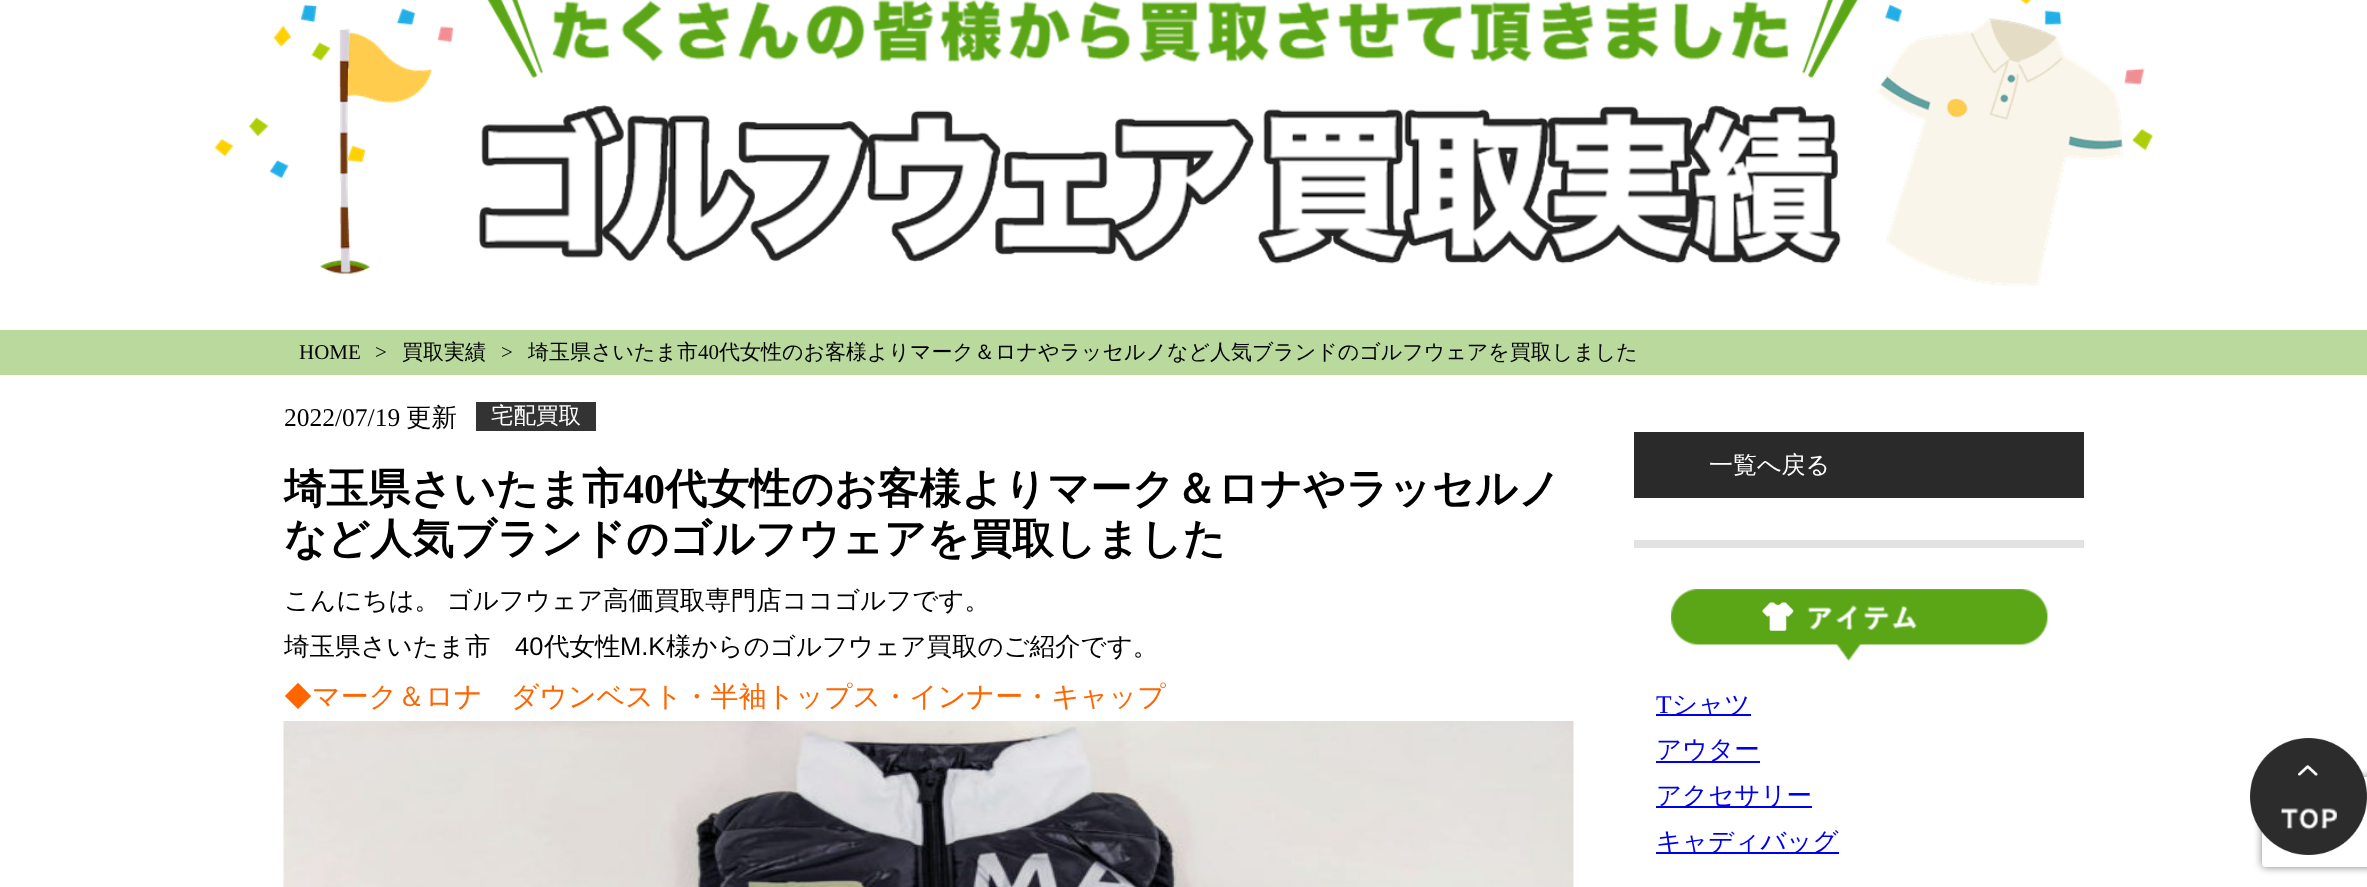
<!DOCTYPE html>
<meta charset="utf-8">
<style>body { margin: 0 } canvas { display: block }</style>
<canvas id="canvas" width="2367" height="887"></canvas>
<script type="module">
  const canvas = document.getElementById("canvas");
  const ctx = canvas.getContext("2d");
  ctx.miterLimit = 4;
  ctx.fontKerning = "normal";
  async function loadImage(src) {
    const img = new Image();
    img.src = src;
    await img.decode();
    return img;
  }

  ctx.fillStyle = "#ffffff";
  ctx.fillRect(0, 0, 2367, 887);
  ctx.drawImage(await loadImage("img1.png"), 214, 0, 1939, 286);
  ctx.fillStyle = "#b9d99d";
  ctx.fillRect(0, 330, 2367, 45);
  ctx.font = "21px Liberation Serif";
  ctx.fillStyle = "#000000";
  ctx.fillText("HOME", 299, 359);
  ctx.fillText(">", 375, 359);
  ctx.font = "500 21px WenQuanYi Zen Hei";
  ctx.fillText("買取実績", 402, 359);
  ctx.font = "21px Liberation Serif";
  ctx.fillText(">", 501, 359);
  ctx.font = "500 21px WenQuanYi Zen Hei";
  ctx.fillText("埼玉県さいたま市", 528, 359);
  ctx.font = "21px Liberation Serif";
  ctx.fillText("40", 698, 359);
  ctx.font = "500 21px WenQuanYi Zen Hei";
  ctx.fillText("代女性のお客様よりマーク＆ロナやラッセルノなど人気ブランドのゴルフウェアを買取しました", 719, 359);
  ctx.font = "25.5px Liberation Serif";
  ctx.fillText("2022/07/19", 284, 426);
  ctx.font = "500 25.5px WenQuanYi Zen Hei";
  ctx.fillText("更新", 406, 426);
  ctx.fillStyle = "#333333";
  ctx.fillRect(476, 402, 120, 29);
  ctx.font = "500 22.5px WenQuanYi Zen Hei";
  ctx.fillStyle = "#ffffff";
  ctx.fillText("宅配買取", 491, 423);
  ctx.font = "bold 42px WenQuanYi Zen Hei";
  ctx.fillStyle = "#000000";
  ctx.fillText("埼玉県さいたま市", 284, 503);
  ctx.font = "bold 42px Liberation Serif";
  ctx.fillText("40", 623, 503);
  ctx.font = "bold 42px WenQuanYi Zen Hei";
  ctx.fillText("代女性のお客様よりマーク＆ロナやラッセルノ", 665, 503);
  ctx.fillText("など人気ブランドのゴルフウェアを買取しました", 284, 553);
  ctx.wordSpacing = "-1px";
  ctx.font = "500 25.5px WenQuanYi Zen Hei";
  ctx.fillText("こんにちは。 ゴルフウェア高価買取専門店ココゴルフです。", 284, 609);
  ctx.wordSpacing = "0px";
  ctx.fillText("埼玉県さいたま市", 284, 655);
  ctx.font = "25.5px Liberation Sans";
  ctx.fillText("40", 515, 655);
  ctx.font = "500 25.5px WenQuanYi Zen Hei";
  ctx.fillText("代女性", 544, 655);
  ctx.font = "25.5px Liberation Sans";
  ctx.fillText("M.K", 620, 655);
  ctx.font = "500 25.5px WenQuanYi Zen Hei";
  ctx.fillText("様からのゴルフウェア買取のご紹介です。", 666, 655);
  ctx.font = "500 28px WenQuanYi Zen Hei";
  ctx.fillStyle = "#ff6600";
  ctx.fillText("◆マーク＆ロナ　ダウンベスト・半袖トップス・インナー・キャップ", 284, 706);
  ctx.drawImage(await loadImage("img2.png"), 283, 721, 1291, 166);
  ctx.fillStyle = "#e2e2e2";
  ctx.fillRect(1634, 540, 450, 8);
  ctx.fillStyle = "#2a2a2a";
  ctx.fillRect(1634, 432, 450, 66);
  ctx.font = "500 24px WenQuanYi Zen Hei";
  ctx.fillStyle = "#ffffff";
  ctx.fillText("一覧へ戻る", 1709, 473);
  ctx.drawImage(await loadImage("img3.png"), 1671, 589, 377, 72);
  ctx.font = "25.5px Liberation Serif";
  ctx.fillStyle = "#0000ee";
  ctx.fillText("T", 1656, 713);
  ctx.fillRect(1656, 714, 95, 2);
  ctx.font = "500 25.5px WenQuanYi Zen Hei";
  ctx.fillText("シャツ", 1672, 713);
  ctx.fillRect(1656, 761, 104, 2);
  ctx.fillText("アウター", 1656, 758);
  ctx.fillRect(1656, 806, 156, 2);
  ctx.fillText("アクセサリー", 1656, 804);
  ctx.fillRect(1656, 852, 183, 2);
  ctx.fillText("キャディバッグ", 1656, 850);
  ctx.save();
  ctx.beginPath();
  ctx.moveTo(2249, 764);
  ctx.lineTo(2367, 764);
  ctx.lineTo(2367, 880);
  ctx.lineTo(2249, 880);
  ctx.closePath();
  ctx.moveTo(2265, 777);
  ctx.lineTo(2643, 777);
  ctx.bezierCurveTo(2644.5, 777, 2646, 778.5, 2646, 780);
  ctx.lineTo(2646, 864);
  ctx.bezierCurveTo(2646, 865.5, 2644.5, 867, 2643, 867);
  ctx.lineTo(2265, 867);
  ctx.bezierCurveTo(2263.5, 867, 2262, 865.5, 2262, 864);
  ctx.lineTo(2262, 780);
  ctx.bezierCurveTo(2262, 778.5, 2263.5, 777, 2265, 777);
  ctx.closePath();
  ctx.clip("evenodd");
  ctx.fillStyle = "#808080";
  ctx.filter = "blur(4px)";
  ctx.beginPath();
  ctx.roundRect(2262, 777, 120, 90, 3);
  ctx.fill();
  ctx.filter = "none";
  ctx.restore();
  ctx.drawImage(await loadImage("img4.png"), 2250, 738, 117, 117);
</script>
